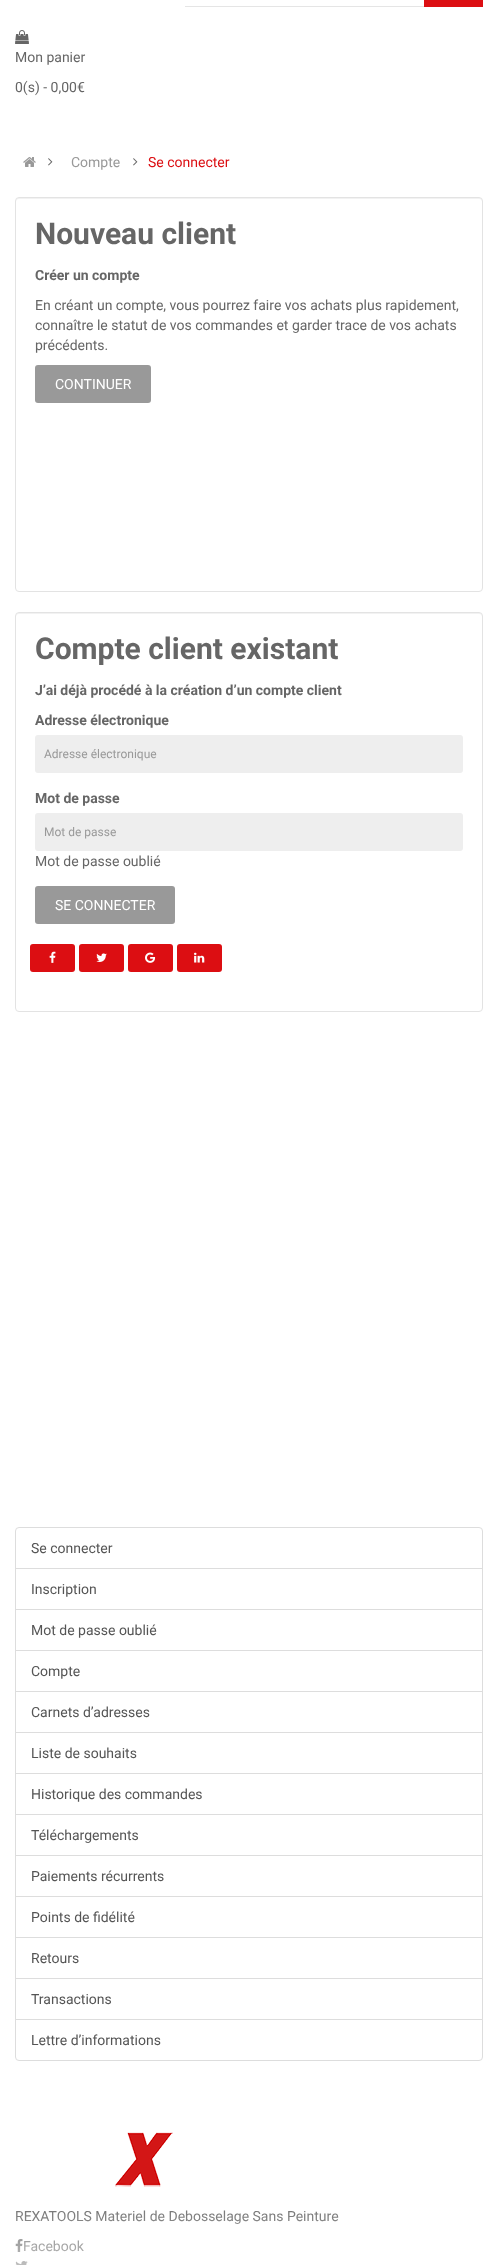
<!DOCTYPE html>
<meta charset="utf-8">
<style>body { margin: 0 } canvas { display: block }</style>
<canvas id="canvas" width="498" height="2265"></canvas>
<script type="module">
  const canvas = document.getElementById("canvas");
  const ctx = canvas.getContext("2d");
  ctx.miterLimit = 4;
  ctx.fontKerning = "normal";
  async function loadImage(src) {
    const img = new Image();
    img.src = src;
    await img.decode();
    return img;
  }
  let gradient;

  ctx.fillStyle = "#ffffff";
  ctx.fillRect(0, 0, 498, 2265);
  ctx.fillStyle = "#e5e5e5";
  ctx.fillRect(185, 6, 240, 1);
  ctx.fillStyle = "#dc0e12";
  ctx.fillRect(424, 0, 59, 7);
  ctx.drawImage(await loadImage("img1.png"), 15, 30, 14, 14);
  ctx.font = "14px Roboto";
  ctx.fillStyle = "#666666";
  ctx.fillText("Mon panier", 15, 62);
  ctx.fillText("0(s) - 0,00€", 15, 92);
  ctx.drawImage(await loadImage("img2.png"), 23, 157, 13, 10);
  ctx.drawImage(await loadImage("img3.png"), 48, 158, 5, 8);
  ctx.fillStyle = "#999999";
  ctx.fillText("Compte", 71, 167);
  ctx.drawImage(await loadImage("img3.png"), 133, 158, 5, 8);
  ctx.fillStyle = "#dc0e12";
  ctx.fillText("Se connecter", 148, 167);
  ctx.fillStyle = "#f2f2f2";
  ctx.beginPath();
  ctx.moveTo(19, 199);
  ctx.lineTo(479, 199);
  ctx.bezierCurveTo(481, 199, 482, 200, 482, 202);
  ctx.lineTo(482, 201);
  ctx.bezierCurveTo(482, 199, 481, 198, 479, 198);
  ctx.lineTo(19, 198);
  ctx.bezierCurveTo(17, 198, 16, 199, 16, 201);
  ctx.lineTo(16, 202);
  ctx.bezierCurveTo(16, 200, 17, 199, 19, 199);
  ctx.closePath();
  ctx.fill();
  ctx.beginPath();
  ctx.roundRect(15.5, 197.5, 467, 394, 3.5);
  ctx.strokeStyle = "#e3e3e3";
  ctx.stroke();
  ctx.font = "bold 30px Roboto";
  ctx.fillStyle = "#666666";
  ctx.fillText("Nouveau client", 35, 244);
  ctx.font = "bold 14px Roboto";
  ctx.fillText("Créer un compte", 35, 280);
  ctx.font = "14px Roboto";
  ctx.fillText("En créant un compte, vous pourrez faire vos achats plus rapidement,", 35, 310);
  ctx.fillText("connaître le statut de vos commandes et garder trace de vos achats", 35, 330);
  ctx.fillText("précédents.", 35, 350);
  ctx.fillStyle = "#999999";
  ctx.beginPath();
  ctx.roundRect(35, 365, 116, 38, 3);
  ctx.fill();
  ctx.fillStyle = "#ffffff";
  ctx.fillText("CONTINUER", 55, 389);
  ctx.fillStyle = "#f2f2f2";
  ctx.beginPath();
  ctx.moveTo(19, 614);
  ctx.lineTo(479, 614);
  ctx.bezierCurveTo(481, 614, 482, 615, 482, 617);
  ctx.lineTo(482, 616);
  ctx.bezierCurveTo(482, 614, 481, 613, 479, 613);
  ctx.lineTo(19, 613);
  ctx.bezierCurveTo(17, 613, 16, 614, 16, 616);
  ctx.lineTo(16, 617);
  ctx.bezierCurveTo(16, 615, 17, 614, 19, 614);
  ctx.closePath();
  ctx.fill();
  ctx.beginPath();
  ctx.roundRect(15.5, 612.5, 467, 399, 3.5);
  ctx.stroke();
  ctx.font = "bold 30px Roboto";
  ctx.fillStyle = "#666666";
  ctx.fillText("Compte client existant", 35, 659);
  ctx.font = "bold 14px Roboto";
  ctx.fillText("J’ai déjà procédé à la création d’un compte client", 35, 695);
  ctx.fillText("Adresse électronique", 35, 725);
  ctx.fillStyle = "#eeeeee";
  ctx.beginPath();
  ctx.roundRect(35, 735, 428, 38, 3);
  ctx.fill();
  ctx.font = "12px Roboto";
  ctx.fillStyle = "#999999";
  ctx.fillText("Adresse électronique", 44, 758);
  ctx.font = "bold 14px Roboto";
  ctx.fillStyle = "#666666";
  ctx.fillText("Mot de passe", 35, 803);
  ctx.fillStyle = "#eeeeee";
  ctx.beginPath();
  ctx.roundRect(35, 813, 428, 38, 3);
  ctx.fill();
  ctx.font = "12px Roboto";
  ctx.fillStyle = "#999999";
  ctx.fillText("Mot de passe", 44, 836);
  ctx.font = "14px Roboto";
  ctx.fillStyle = "#666666";
  ctx.fillText("Mot de passe oublié", 35, 866);
  ctx.fillStyle = "#999999";
  ctx.beginPath();
  ctx.roundRect(35, 886, 140, 38, 3);
  ctx.fill();
  ctx.fillStyle = "#ffffff";
  ctx.fillText("SE CONNECTER", 55, 910);
  ctx.fillStyle = "#dc0e12";
  ctx.beginPath();
  ctx.roundRect(30, 944, 45, 28, 3);
  ctx.fill();
  ctx.drawImage(await loadImage("img4.png"), 49, 951, 7, 12);
  ctx.beginPath();
  ctx.roundRect(79, 944, 45, 28, 3);
  ctx.fill();
  ctx.drawImage(await loadImage("img5.png"), 96, 953, 11, 9);
  ctx.beginPath();
  ctx.roundRect(128, 944, 45, 28, 3);
  ctx.fill();
  ctx.drawImage(await loadImage("img6.png"), 145, 952, 11, 11);
  ctx.beginPath();
  ctx.roundRect(177, 944, 45, 28, 3);
  ctx.fill();
  ctx.drawImage(await loadImage("img7.png"), 194, 952, 11, 11);
  ctx.beginPath();
  ctx.roundRect(15.5, 1527.5, 467, 41, [3.5, 3.5, 0, 0]);
  ctx.strokeStyle = "#dddddd";
  ctx.stroke();
  ctx.fillStyle = "#555555";
  ctx.fillText("Se connecter", 31, 1553);
  ctx.strokeRect(15.5, 1568.5, 467, 41);
  ctx.fillText("Inscription", 31, 1594);
  ctx.strokeRect(15.5, 1609.5, 467, 41);
  ctx.fillText("Mot de passe oublié", 31, 1635);
  ctx.strokeRect(15.5, 1650.5, 467, 41);
  ctx.fillText("Compte", 31, 1676);
  ctx.strokeRect(15.5, 1691.5, 467, 41);
  ctx.fillText("Carnets d’adresses", 31, 1717);
  ctx.strokeRect(15.5, 1732.5, 467, 41);
  ctx.fillText("Liste de souhaits", 31, 1758);
  ctx.strokeRect(15.5, 1773.5, 467, 41);
  ctx.fillText("Historique des commandes", 31, 1799);
  ctx.strokeRect(15.5, 1814.5, 467, 41);
  ctx.fillText("Téléchargements", 31, 1840);
  ctx.strokeRect(15.5, 1855.5, 467, 41);
  ctx.fillText("Paiements récurrents", 31, 1881);
  ctx.strokeRect(15.5, 1896.5, 467, 41);
  ctx.fillText("Points de fidélité", 31, 1922);
  ctx.strokeRect(15.5, 1937.5, 467, 41);
  ctx.fillText("Retours", 31, 1963);
  ctx.strokeRect(15.5, 1978.5, 467, 41);
  ctx.fillText("Transactions", 31, 2004);
  ctx.fillStyle = "#ffffff";
  ctx.beginPath();
  ctx.roundRect(15.5, 2019.5, 467, 41, [0, 0, 3.5, 3.5]);
  ctx.fill();
  ctx.stroke();
  ctx.fillStyle = "#555555";
  ctx.fillText("Lettre d’informations", 31, 2045);
  ctx.fillStyle = "#666666";
  ctx.fillText("REXATOOLS Materiel de Debosselage Sans Peinture", 15, 2221);
  ctx.drawImage(await loadImage("img9.png"), 15, 2239, 8, 13);
  ctx.fillText("Facebook", 23, 2251);
  ctx.drawImage(await loadImage("img10.png"), 15, 2261, 13, 4);
  gradient = ctx.createLinearGradient(249, 2196, 249, 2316);
  gradient.addColorStop(0, "rgba(255, 255, 255, 0)");
  gradient.addColorStop(1, "#ffffff");
  ctx.fillStyle = gradient;
  ctx.fillRect(15, 2210, 323, 55);
  ctx.drawImage(await loadImage("img8.png"), 115, 2132, 58, 55);
</script>
